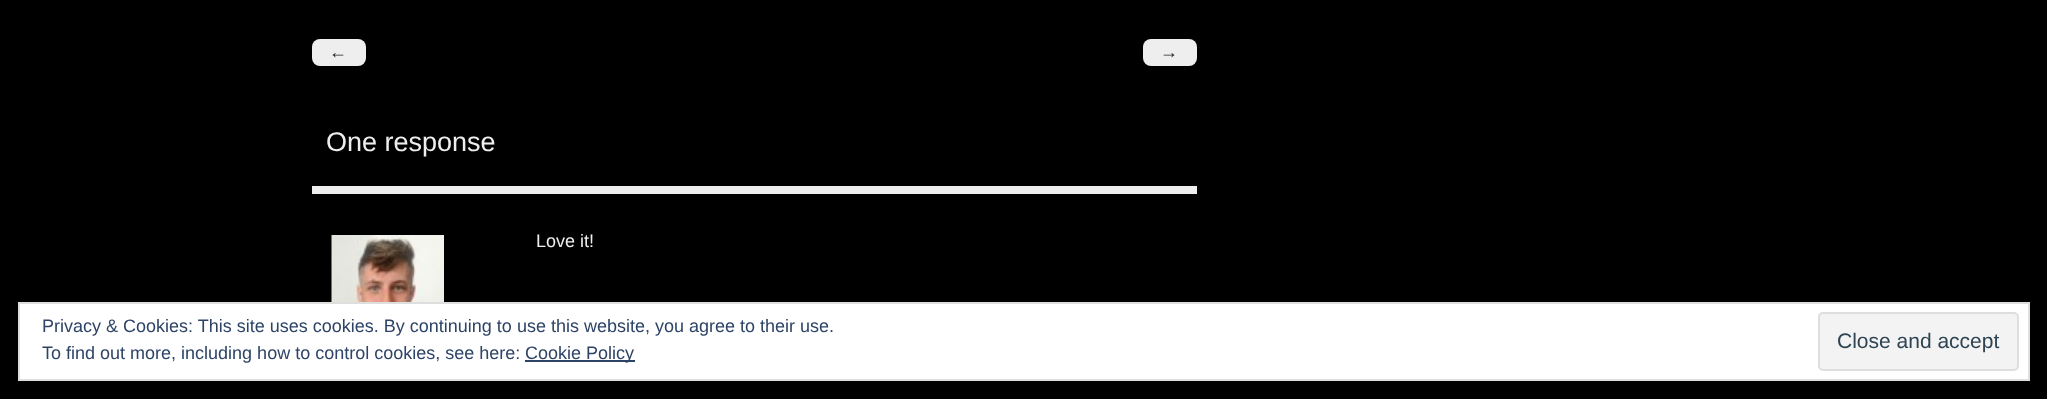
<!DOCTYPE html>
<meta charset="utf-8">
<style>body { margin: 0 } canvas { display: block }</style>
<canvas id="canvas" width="2047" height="399"></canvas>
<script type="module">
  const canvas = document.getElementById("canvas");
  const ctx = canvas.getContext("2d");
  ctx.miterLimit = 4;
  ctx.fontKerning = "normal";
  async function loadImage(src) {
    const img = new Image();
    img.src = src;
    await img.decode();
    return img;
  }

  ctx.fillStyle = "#000000";
  ctx.fillRect(0, 0, 2047, 399);
  ctx.fillStyle = "#eeeeee";
  ctx.beginPath();
  ctx.roundRect(312, 39, 54, 27, 8);
  ctx.fill();
  ctx.font = "18px Liberation Sans";
  ctx.fillStyle = "#222222";
  ctx.fillText("←", 329, 58);
  ctx.fillStyle = "#eeeeee";
  ctx.beginPath();
  ctx.roundRect(1143, 39, 54, 27, 8);
  ctx.fill();
  ctx.fillStyle = "#222222";
  ctx.fillText("→", 1160, 58);
  ctx.font = "27px Liberation Sans";
  ctx.fillStyle = "#eeeeee";
  ctx.fillText("One response", 326, 151);
  ctx.fillRect(312, 186, 885, 8);
  ctx.drawImage(await loadImage("img1.png"), 331, 235, 113, 67);
  ctx.font = "18px Liberation Sans";
  ctx.fillText("Love it!", 536, 247);
  ctx.fillStyle = "#ffffff";
  ctx.beginPath();
  ctx.rect(19, 303, 2010, 77);
  ctx.fill();
  ctx.strokeStyle = "#dedede";
  ctx.lineWidth = 2;
  ctx.stroke();
  ctx.fillStyle = "#2e4467";
  ctx.fillText("Privacy & Cookies: This site uses cookies. By continuing to use this website, you agree to their use.", 42, 332);
  ctx.fillText("To find out more, including how to control cookies, see here:", 42, 359);
  ctx.fillRect(525, 360, 110, 2);
  ctx.fillText("Cookie Policy", 525, 359);
  ctx.fillStyle = "#f3f3f3";
  ctx.beginPath();
  ctx.roundRect(1819, 313, 199, 57, 4);
  ctx.fill();
  ctx.stroke();
  ctx.font = "21px Liberation Sans";
  ctx.fillStyle = "#2e4453";
  ctx.fillText("Close and accept", 1837, 348);
</script>
